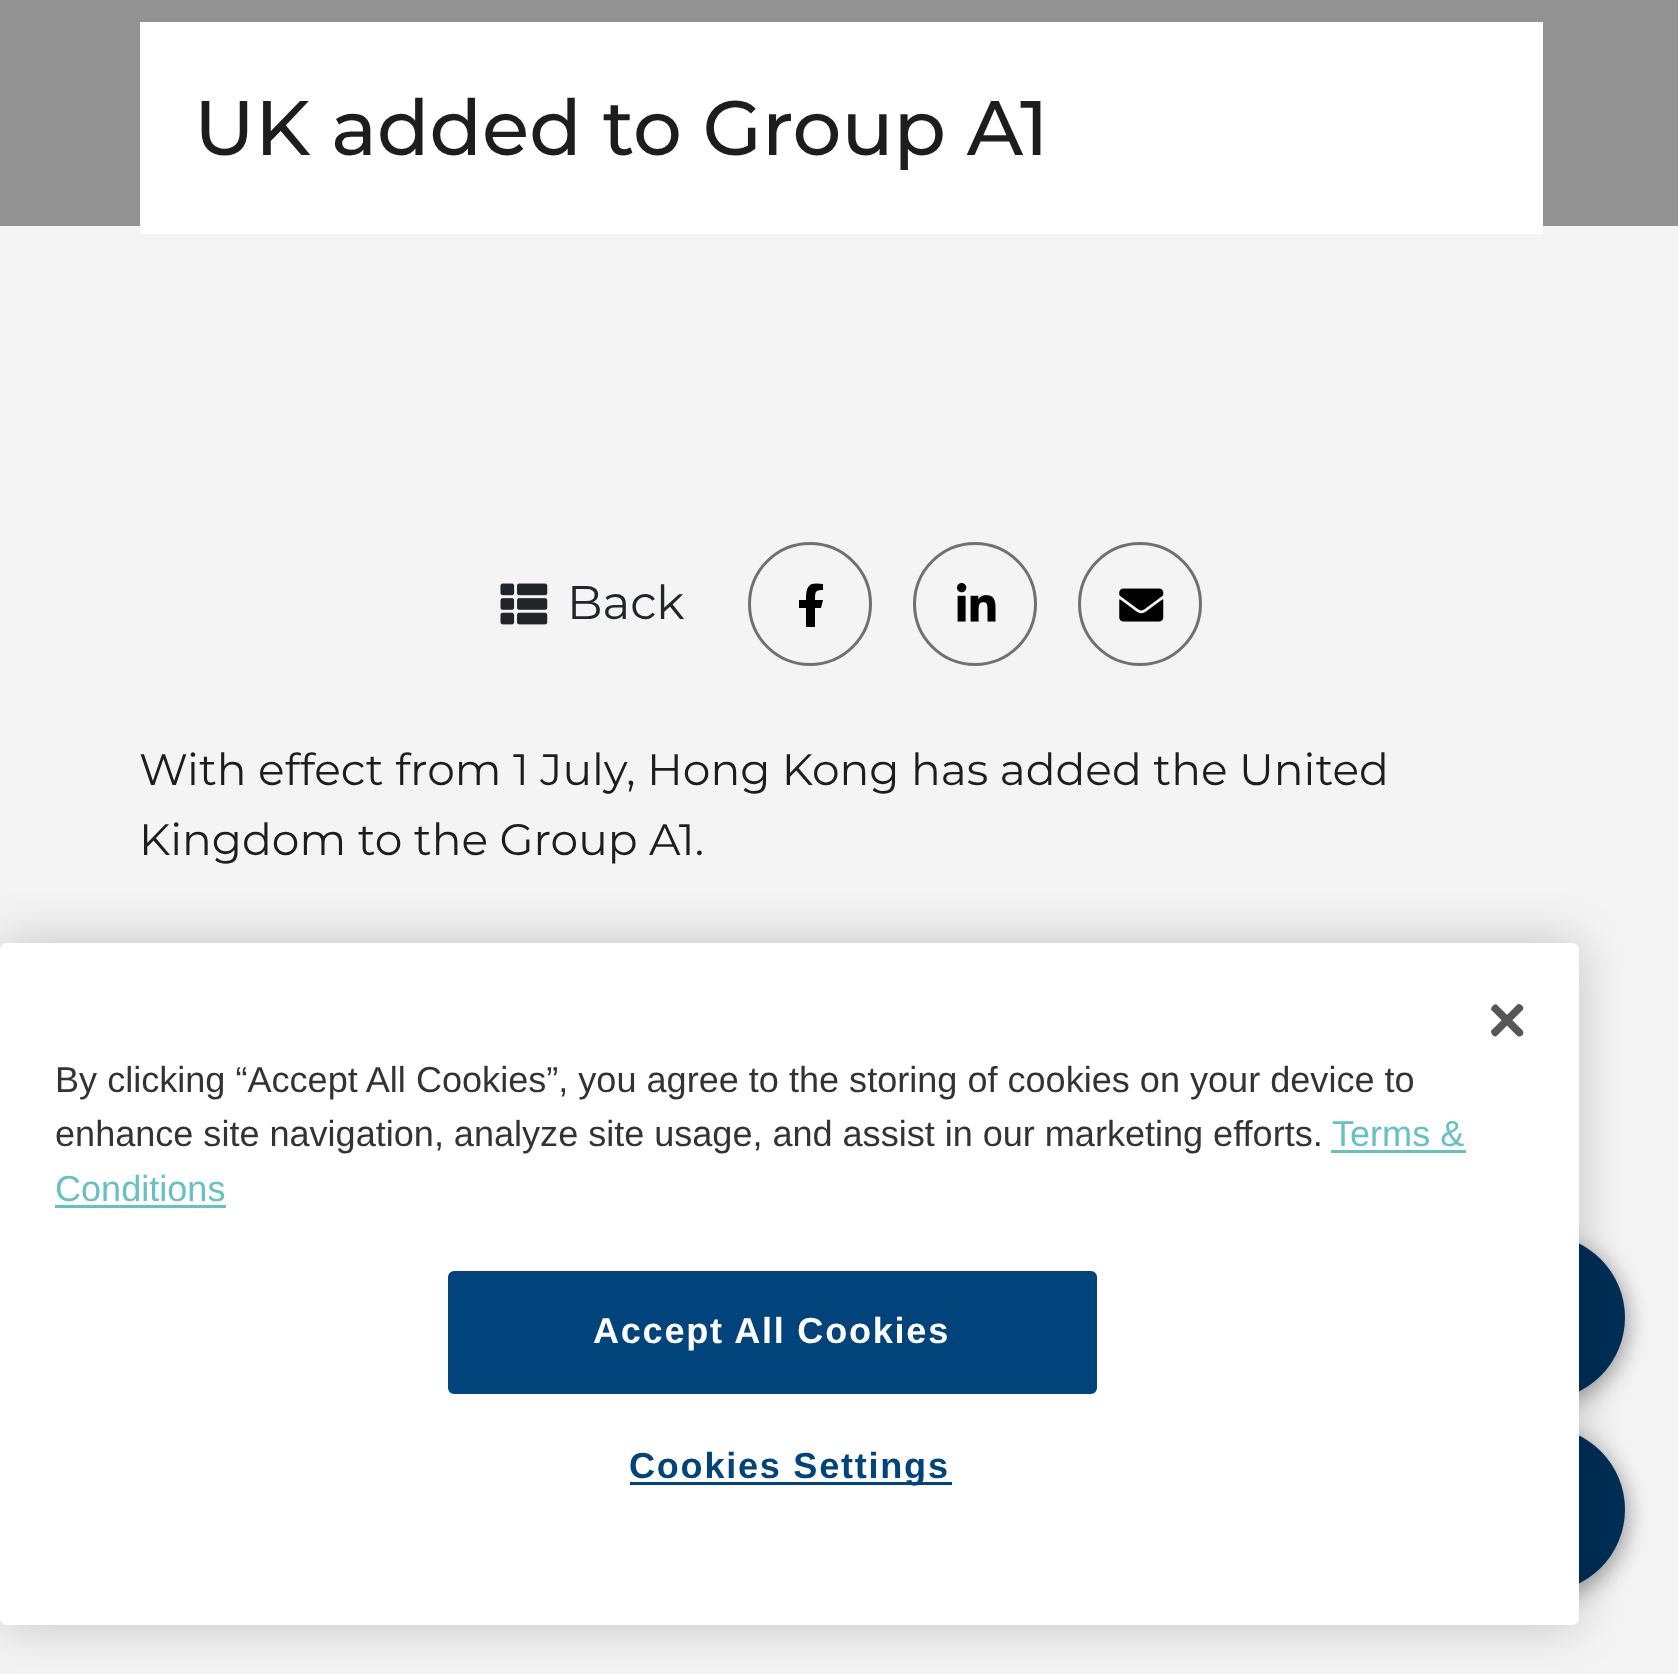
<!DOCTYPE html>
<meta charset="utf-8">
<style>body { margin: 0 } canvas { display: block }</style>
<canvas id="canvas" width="1678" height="1674"></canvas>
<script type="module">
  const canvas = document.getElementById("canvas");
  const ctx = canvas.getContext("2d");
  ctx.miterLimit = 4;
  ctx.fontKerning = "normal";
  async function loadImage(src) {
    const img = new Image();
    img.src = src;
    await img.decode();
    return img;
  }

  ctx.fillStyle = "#f4f4f4";
  ctx.fillRect(0, 0, 1678, 1674);
  ctx.fillStyle = "#929292";
  ctx.fillRect(0, 0, 1678, 226);
  ctx.fillStyle = "#ffffff";
  ctx.fillRect(140, 22, 1403, 212);
  ctx.font = "500 77px Montserrat";
  ctx.fillStyle = "#1d1d1d";
  ctx.fillText("UK added to Group A1", 194, 155);
  ctx.drawImage(await loadImage("img1.png"), 500, 583, 48, 42);
  ctx.font = "47px Montserrat";
  ctx.fillStyle = "#212529";
  ctx.fillText("Back", 567, 619);
  ctx.beginPath();
  ctx.arc(810, 604, 60.5, 0, Math.PI * 2);
  ctx.strokeStyle = "#707070";
  ctx.lineWidth = 3;
  ctx.stroke();
  ctx.fillStyle = "#000000";
  ctx.beginPath();
  ctx.moveTo(821, 608);
  ctx.lineTo(815, 608);
  ctx.lineTo(815, 627);
  ctx.lineTo(806, 627);
  ctx.lineTo(806, 608);
  ctx.lineTo(799, 608);
  ctx.lineTo(799, 600);
  ctx.lineTo(806, 600);
  ctx.bezierCurveTo(806, 585, 809, 582, 823, 584);
  ctx.lineTo(823, 590);
  ctx.bezierCurveTo(815, 590, 815, 592, 815, 600);
  ctx.lineTo(823, 600);
  ctx.closePath();
  ctx.fill();
  ctx.beginPath();
  ctx.arc(975, 604, 60.5, 0, Math.PI * 2);
  ctx.stroke();
  ctx.drawImage(await loadImage("img2.png"), 957, 583, 39, 39);
  ctx.beginPath();
  ctx.arc(1140, 604, 60.5, 0, Math.PI * 2);
  ctx.stroke();
  ctx.drawImage(await loadImage("img3.png"), 1119, 588, 45, 34);
  ctx.font = "44px Montserrat";
  ctx.fillStyle = "#1d1d1d";
  ctx.fillText("With effect from 1 July, Hong Kong has added the United", 139, 785);
  ctx.fillText("Kingdom to the Group A1.", 139, 855);
  ctx.fillStyle = "rgba(0, 0, 0, 0.35)";
  ctx.filter = "blur(11px)";
  ctx.beginPath();
  ctx.roundRect(1262, 1240, 366, 165, 82.5);
  ctx.fill();
  ctx.filter = "none";
  ctx.fillStyle = "#002e57";
  ctx.beginPath();
  ctx.roundRect(1260, 1235, 365, 165, 82.5);
  ctx.fill();
  ctx.fillStyle = "rgba(0, 0, 0, 0.35)";
  ctx.filter = "blur(11px)";
  ctx.beginPath();
  ctx.roundRect(1235, 1433, 393, 165, 82.5);
  ctx.fill();
  ctx.filter = "none";
  ctx.fillStyle = "#002e57";
  ctx.beginPath();
  ctx.roundRect(1232, 1427, 393, 165, 82.5);
  ctx.fill();
  ctx.fillStyle = "rgba(0, 0, 0, 0.2)";
  ctx.filter = "blur(25px)";
  ctx.beginPath();
  ctx.roundRect(0, 943, 1579, 682, 7);
  ctx.fill();
  ctx.filter = "none";
  ctx.fillStyle = "#ffffff";
  ctx.beginPath();
  ctx.roundRect(0, 943, 1579, 682, 7);
  ctx.fill();
  ctx.drawImage(await loadImage("img4.png"), 1491, 1004, 33, 33);
  ctx.font = "36.1px Liberation Sans";
  ctx.fillStyle = "#333333";
  ctx.fillText("By clicking “Accept All Cookies”, you agree to the storing of cookies on your device to", 55, 1092);
  ctx.wordSpacing = "-0.1px";
  ctx.fillText("enhance site navigation, analyze site usage, and assist in our marketing efforts.", 55, 1146);
  ctx.wordSpacing = "0px";
  ctx.fillStyle = "#67c1c1";
  ctx.fillText("Terms &", 1332, 1146);
  ctx.fillRect(1331, 1150, 135, 3);
  ctx.fillText("Conditions", 55, 1201);
  ctx.fillRect(55, 1205, 171, 3);
  ctx.fillStyle = "#01447b";
  ctx.beginPath();
  ctx.roundRect(449.5, 1272.5, 646, 120, 4.5);
  ctx.fill();
  ctx.strokeStyle = "#01447b";
  ctx.stroke();
  ctx.letterSpacing = "1.75px";
  ctx.font = "bold 36.1px Liberation Sans";
  ctx.fillStyle = "#ffffff";
  ctx.fillText("Accept All Cookies", 593, 1343);
  ctx.fillStyle = "#01447b";
  ctx.fillRect(630, 1482, 322, 3);
  ctx.fillText("Cookies Settings", 629, 1478);
</script>
